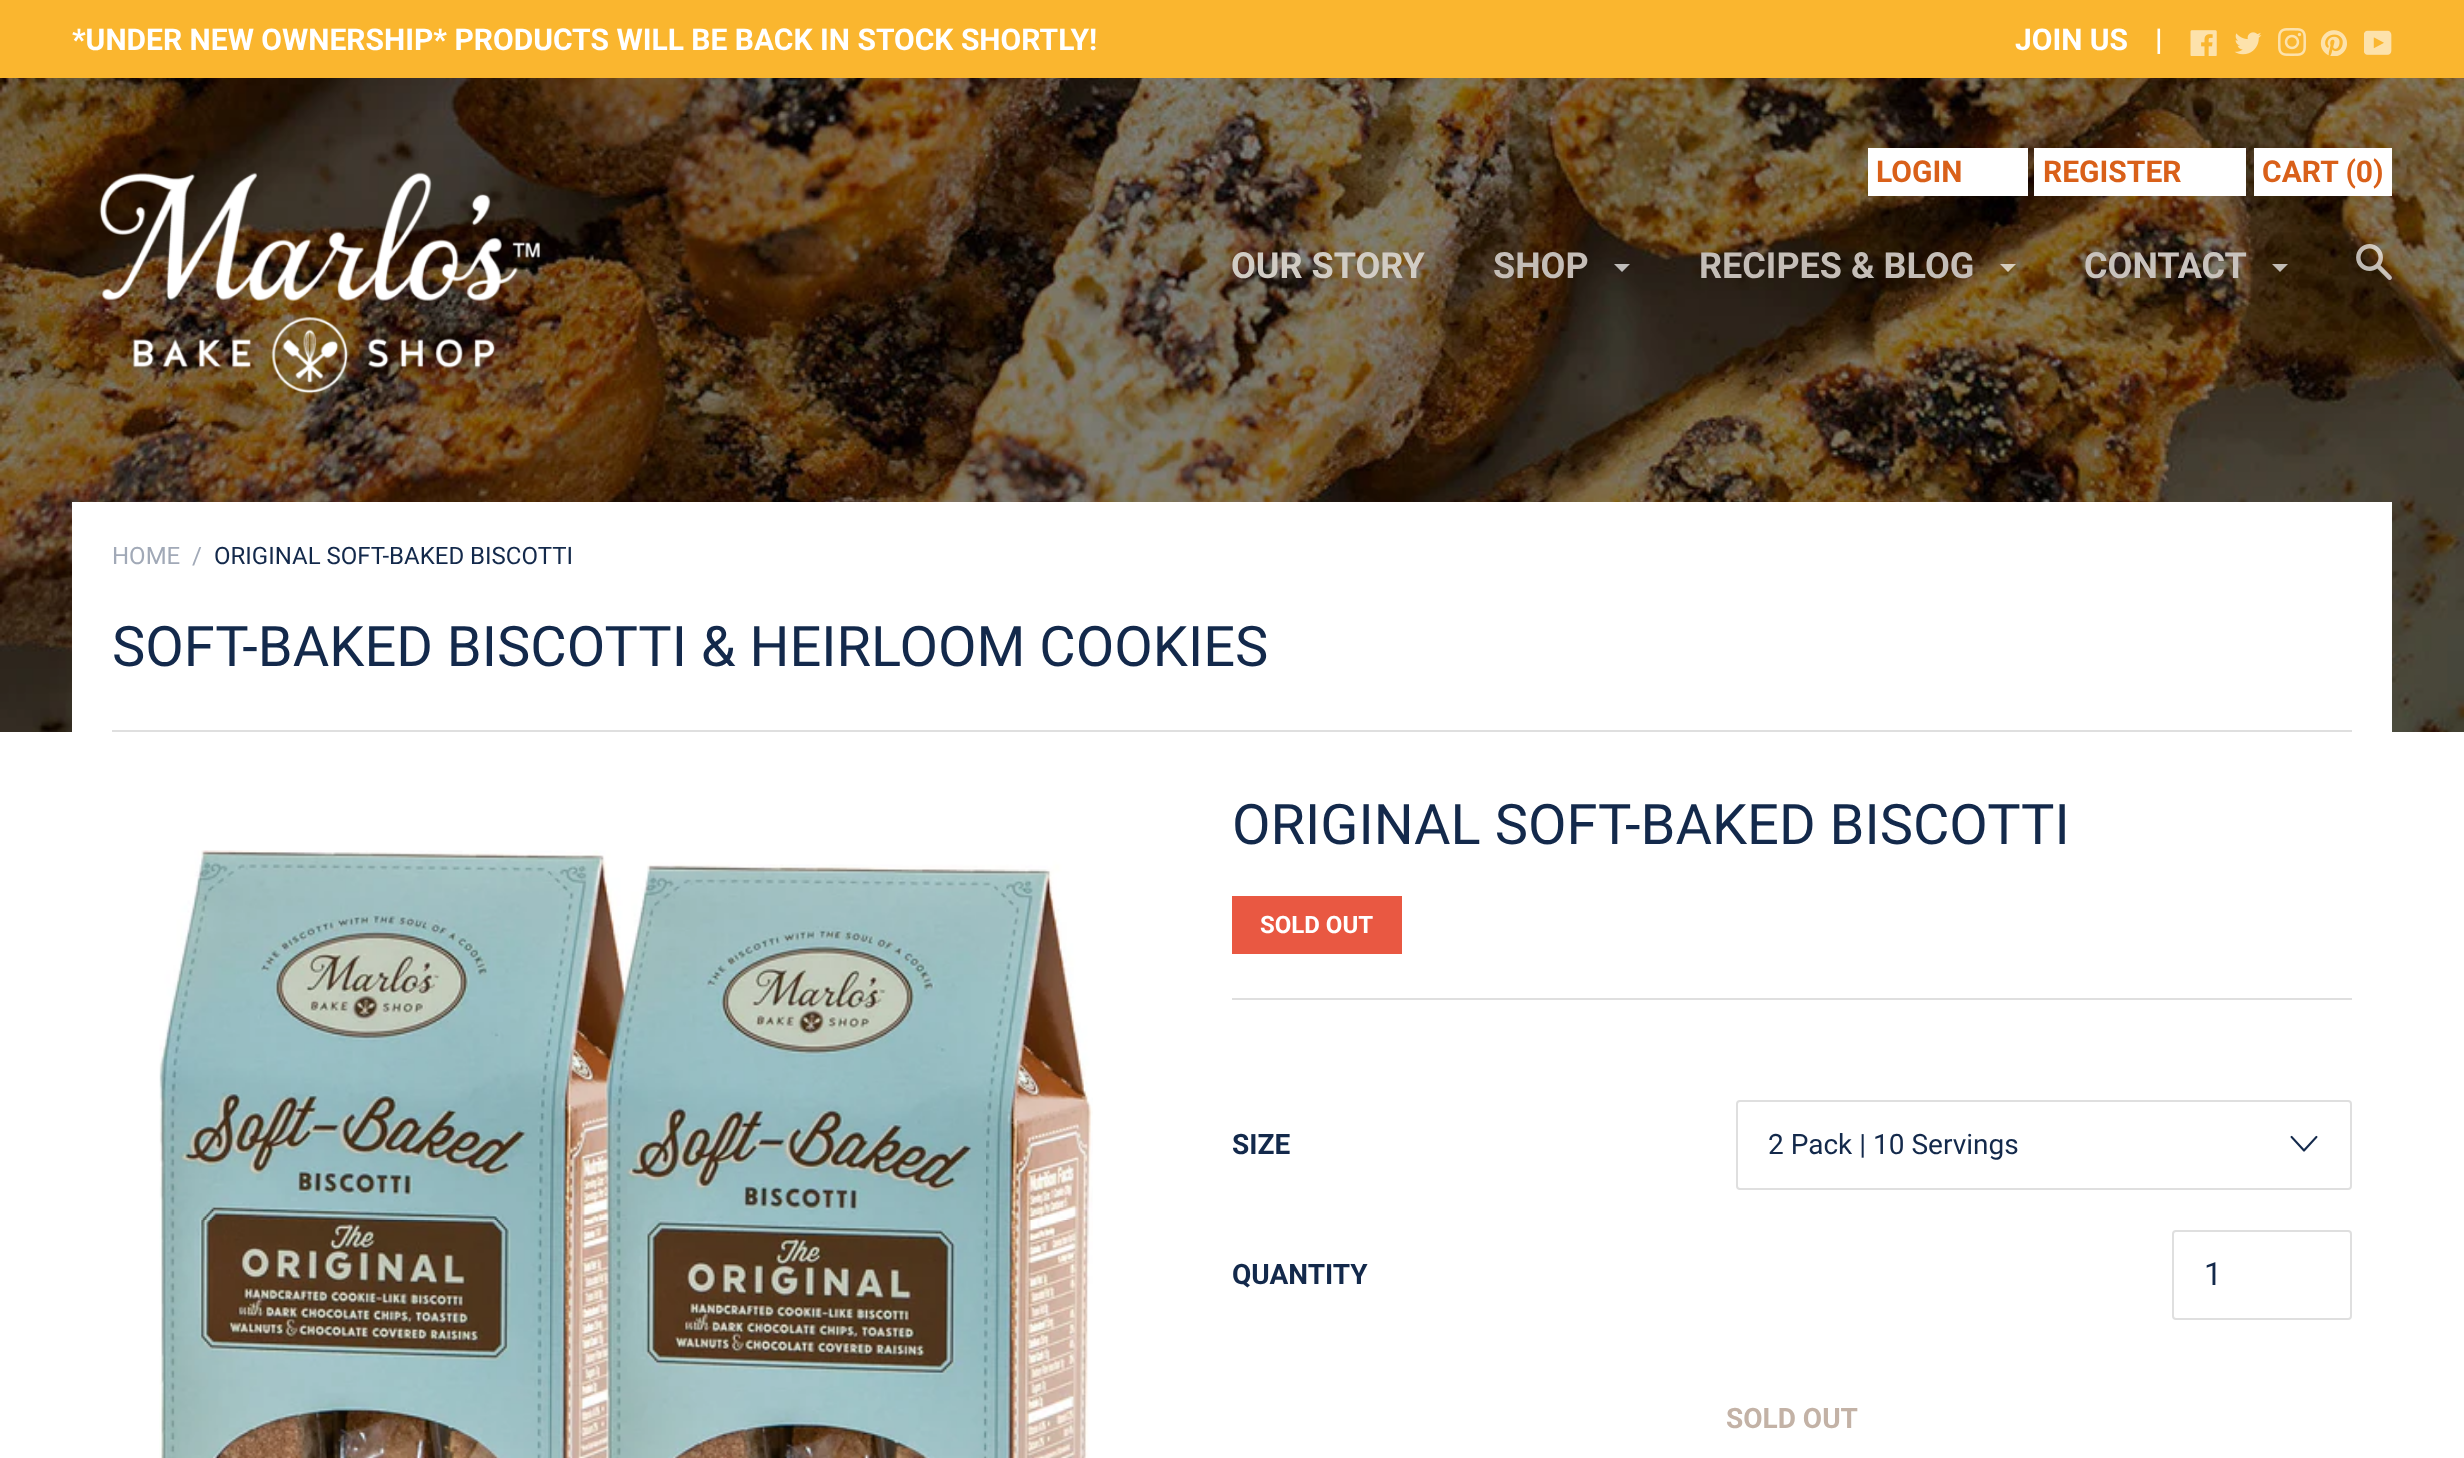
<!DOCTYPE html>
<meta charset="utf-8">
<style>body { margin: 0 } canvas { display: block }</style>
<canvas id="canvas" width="2464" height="1458"></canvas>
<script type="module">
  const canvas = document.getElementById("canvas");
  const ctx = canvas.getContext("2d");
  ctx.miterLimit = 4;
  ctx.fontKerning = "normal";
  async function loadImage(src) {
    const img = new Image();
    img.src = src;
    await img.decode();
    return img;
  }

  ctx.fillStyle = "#ffffff";
  ctx.fillRect(0, 0, 2464, 1458);
  ctx.fillStyle = "#fab62f";
  ctx.fillRect(0, 0, 2464, 78);
  ctx.font = "bold 30px Roboto";
  ctx.fillStyle = "#ffffff";
  ctx.fillText("*UNDER NEW OWNERSHIP* PRODUCTS WILL BE BACK IN STOCK SHORTLY!", 72, 50);
  ctx.fillText("JOIN US", 2015, 50);
  ctx.fillText("|", 2155, 50);
  ctx.drawImage(await loadImage("img1.png"), 2190, 30, 27, 26);
  ctx.drawImage(await loadImage("img2.png"), 2234, 32, 28, 23);
  ctx.drawImage(await loadImage("img3.png"), 2278, 28, 28, 28);
  ctx.drawImage(await loadImage("img4.png"), 2320, 30, 27, 26);
  ctx.drawImage(await loadImage("img5.png"), 2364, 30, 28, 25);
  ctx.drawImage(await loadImage("img6.png"), 0, 78, 2464, 654);
  ctx.drawImage(await loadImage("img7.png"), 99, 172, 441, 222);
  ctx.fillRect(1868, 148, 160, 48);
  ctx.fillStyle = "#d96019";
  ctx.fillText("LOGIN", 1876, 182);
  ctx.fillStyle = "#ffffff";
  ctx.fillRect(2034, 148, 212, 48);
  ctx.fillStyle = "#d96019";
  ctx.fillText("REGISTER", 2043, 182);
  ctx.fillStyle = "#ffffff";
  ctx.fillRect(2254, 148, 138, 48);
  ctx.fillStyle = "#d96019";
  ctx.fillText("CART (0)", 2262, 182);
  ctx.font = "bold 36px Roboto";
  ctx.fillStyle = "#d1ccc4";
  ctx.fillText("OUR STORY", 1231, 278);
  ctx.fillStyle = "#c4bdb7";
  ctx.fillText("SHOP", 1493, 278);
  ctx.fillStyle = "rgba(255, 255, 255, 0.7)";
  ctx.beginPath();
  ctx.moveTo(1614, 264);
  ctx.lineTo(1630, 264);
  ctx.lineTo(1622, 272);
  ctx.closePath();
  ctx.fill();
  ctx.fillStyle = "#c4bdb7";
  ctx.fillText("RECIPES & BLOG", 1699, 278);
  ctx.fillStyle = "rgba(255, 255, 255, 0.7)";
  ctx.beginPath();
  ctx.moveTo(2000, 264);
  ctx.lineTo(2016, 264);
  ctx.lineTo(2008, 272);
  ctx.closePath();
  ctx.fill();
  ctx.fillStyle = "#c8c2bd";
  ctx.fillText("CONTACT", 2084, 278);
  ctx.fillStyle = "rgba(255, 255, 255, 0.7)";
  ctx.beginPath();
  ctx.moveTo(2272, 264);
  ctx.lineTo(2288, 264);
  ctx.lineTo(2280, 272);
  ctx.closePath();
  ctx.fill();
  ctx.drawImage(await loadImage("img8.png"), 2356, 244, 36, 36);
  ctx.fillStyle = "#ffffff";
  ctx.fillRect(72, 502, 2320, 230);
  ctx.font = "24px Roboto";
  ctx.fillStyle = "#a1a9b7";
  ctx.fillText("HOME", 112, 564);
  ctx.fillText("/", 192, 564);
  ctx.fillStyle = "#13294b";
  ctx.fillText("ORIGINAL SOFT-BAKED BISCOTTI", 214, 564);
  ctx.fillStyle = "#dfdfdf";
  ctx.fillRect(112, 730, 2240, 2);
  ctx.font = "56px Roboto";
  ctx.fillStyle = "#13294b";
  ctx.fillText("SOFT-BAKED BISCOTTI & HEIRLOOM COOKIES", 112, 666);
  ctx.drawImage(await loadImage("img9.png"), 159, 850, 934, 608);
  ctx.fillStyle = "#dfdfdf";
  ctx.fillRect(1232, 998, 1120, 2);
  ctx.fillStyle = "#13294b";
  ctx.fillText("ORIGINAL SOFT-BAKED BISCOTTI", 1232, 844);
  ctx.fillStyle = "#e95842";
  ctx.fillRect(1232, 896, 170, 58);
  ctx.font = "bold 24px Roboto";
  ctx.fillStyle = "#ffffff";
  ctx.fillText("SOLD OUT", 1260, 933);
  ctx.font = "bold 28px Roboto";
  ctx.fillStyle = "#13294b";
  ctx.fillText("SIZE", 1232, 1154);
  ctx.beginPath();
  ctx.roundRect(1737, 1101, 614, 88, 3);
  ctx.strokeStyle = "#dfdfdf";
  ctx.lineWidth = 2;
  ctx.stroke();
  ctx.font = "28px Roboto";
  ctx.fillText("2 Pack | 10 Servings", 1768, 1154);
  ctx.drawImage(await loadImage("img10.png"), 2290, 1135, 28, 17);
  ctx.font = "bold 28px Roboto";
  ctx.fillText("QUANTITY", 1232, 1284);
  ctx.beginPath();
  ctx.roundRect(2173, 1231, 178, 88, 3);
  ctx.stroke();
  ctx.font = "32px Roboto";
  ctx.fillText("1", 2204, 1285);
  ctx.font = "bold 28px Roboto";
  ctx.fillStyle = "#c3b2a6";
  ctx.fillText("SOLD OUT", 1726, 1428);
</script>
